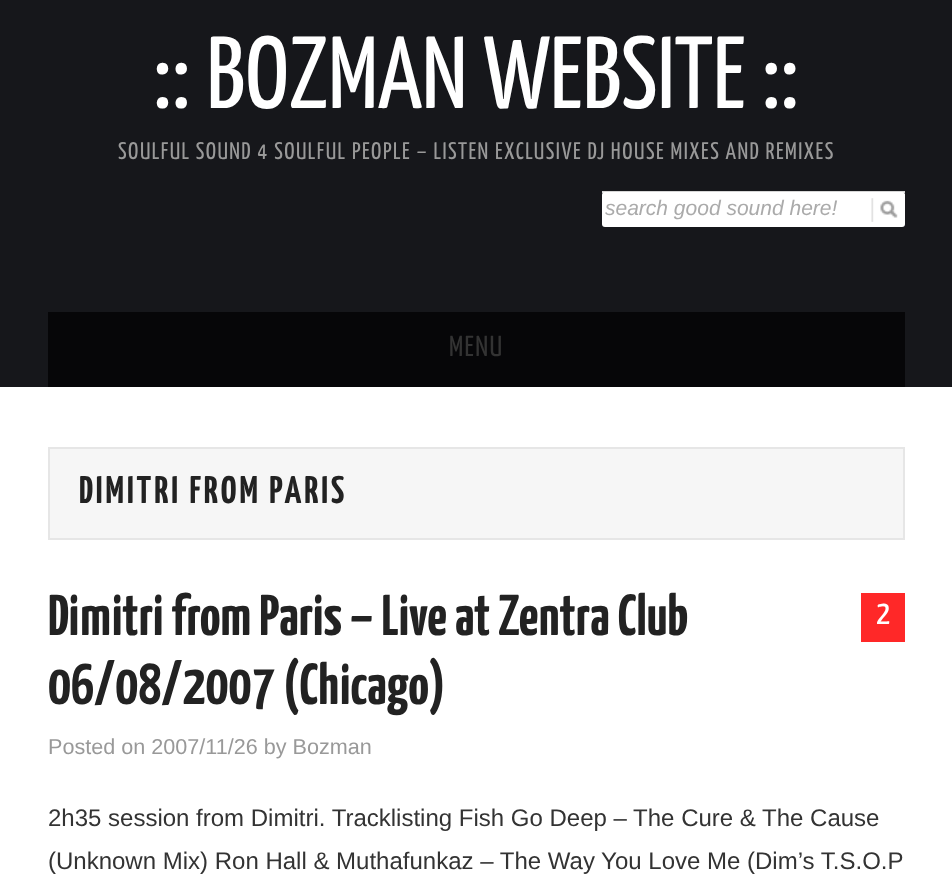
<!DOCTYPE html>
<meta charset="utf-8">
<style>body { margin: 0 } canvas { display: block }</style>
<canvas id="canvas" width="952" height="884"></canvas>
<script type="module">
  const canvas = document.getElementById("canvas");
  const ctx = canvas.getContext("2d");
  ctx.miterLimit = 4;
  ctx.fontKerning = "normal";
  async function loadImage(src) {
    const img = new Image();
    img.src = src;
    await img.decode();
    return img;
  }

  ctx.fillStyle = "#ffffff";
  ctx.fillRect(0, 0, 952, 884);
  ctx.fillStyle = "#16171b";
  ctx.fillRect(0, 0, 952, 387);
  ctx.font = "102px Yanone Kaffeesatz";
  ctx.fillStyle = "#ffffff";
  ctx.fillText(":: BOZMAN WEBSITE ::", 153, 108);
  ctx.letterSpacing = "1.5px";
  ctx.font = "24px Yanone Kaffeesatz";
  ctx.fillStyle = "#999999";
  ctx.fillText("SOULFUL SOUND 4 SOULFUL PEOPLE – LISTEN EXCLUSIVE DJ HOUSE MIXES AND REMIXES", 118, 159);
  ctx.fillStyle = "#d6d6d6";
  ctx.fillRect(602, 191, 303, 2);
  ctx.fillStyle = "#ffffff";
  ctx.beginPath();
  ctx.roundRect(602, 192, 303, 35, 3);
  ctx.fill();
  ctx.fillRect(904, 194, 1, 1);
  ctx.letterSpacing = "0px";
  ctx.font = "italic 21px Liberation Sans";
  ctx.fillStyle = "#aaaaaa";
  ctx.fillText("search good sound here!", 605, 215);
  ctx.drawImage(await loadImage("img1.png"), 871, 198, 27, 24);
  ctx.fillStyle = "#060608";
  ctx.fillRect(48, 312, 857, 75);
  ctx.letterSpacing = "1.5px";
  ctx.font = "29px Yanone Kaffeesatz";
  ctx.fillStyle = "#333333";
  ctx.fillText("MENU", 449, 356);
  ctx.fillStyle = "#f6f6f6";
  ctx.beginPath();
  ctx.rect(49, 448, 855, 91);
  ctx.fill();
  ctx.strokeStyle = "#e6e6e6";
  ctx.lineWidth = 2;
  ctx.stroke();
  ctx.letterSpacing = "3px";
  ctx.font = "bold 38.5px Yanone Kaffeesatz";
  ctx.fillStyle = "#222222";
  ctx.fillText("DIMITRI FROM PARIS", 79, 503);
  ctx.letterSpacing = "0px";
  ctx.font = "bold 57.6px Yanone Kaffeesatz";
  ctx.fillText("Dimitri from Paris – Live at Zentra Club", 48, 635);
  ctx.fillText("06/08/2007 (Chicago)", 48, 704);
  ctx.fillStyle = "#ff2828";
  ctx.fillRect(861, 593, 44, 49);
  ctx.font = "34px Yanone Kaffeesatz";
  ctx.fillStyle = "#ffffff";
  ctx.fillText("2", 876, 624);
  ctx.font = "21.6px Liberation Sans";
  ctx.fillStyle = "#999999";
  ctx.fillText("Posted on 2007/11/26 by Bozman", 48, 754);
  ctx.font = "24px Liberation Sans";
  ctx.fillStyle = "#333333";
  ctx.fillText("2h35 session from Dimitri. Tracklisting Fish Go Deep – The Cure & The Cause", 48, 826);
  ctx.fillText("(Unknown Mix) Ron Hall & Muthafunkaz – The Way You Love Me (Dim’s T.S.O.P", 48, 869);
</script>
